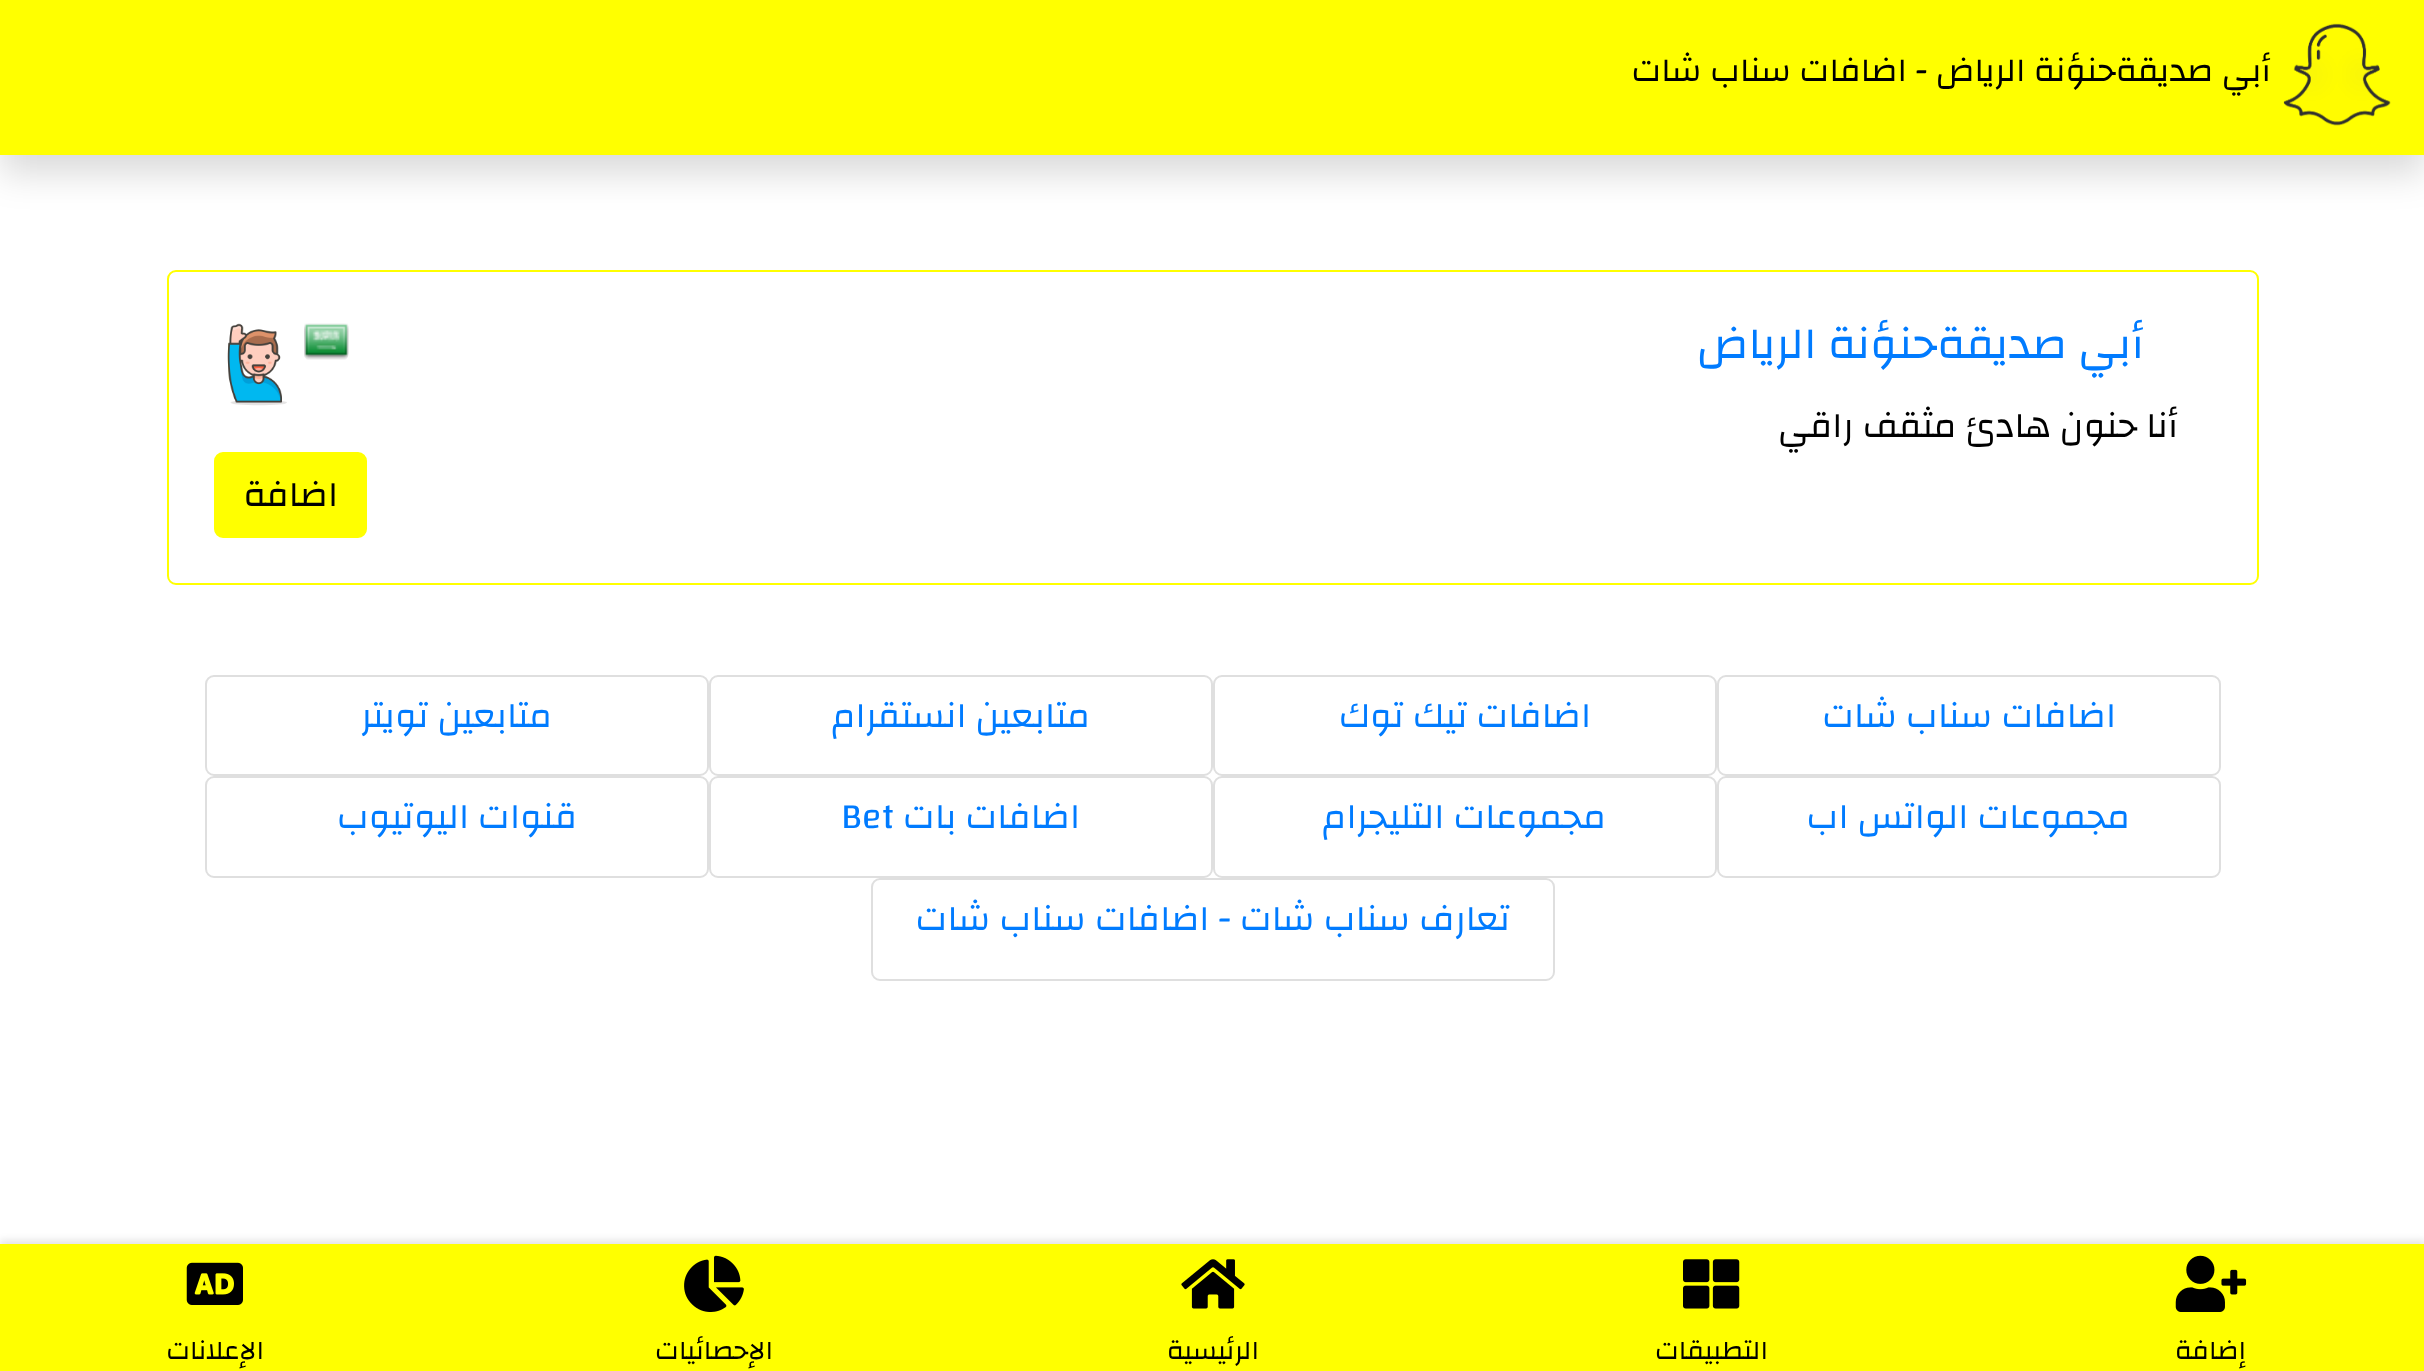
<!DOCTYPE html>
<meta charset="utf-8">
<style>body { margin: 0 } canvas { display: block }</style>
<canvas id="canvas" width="2424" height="1371"></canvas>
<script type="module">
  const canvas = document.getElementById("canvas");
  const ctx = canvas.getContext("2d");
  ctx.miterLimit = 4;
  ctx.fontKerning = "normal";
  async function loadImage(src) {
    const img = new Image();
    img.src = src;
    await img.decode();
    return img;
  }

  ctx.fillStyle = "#ffffff";
  ctx.fillRect(0, 0, 2424, 1371);
  ctx.fillStyle = "rgba(0, 0, 0, 0.15)";
  ctx.filter = "blur(18px)";
  ctx.beginPath();
  ctx.rect(0, 18, 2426, 155);
  ctx.fill();
  ctx.filter = "none";
  ctx.fillStyle = "#ffff00";
  ctx.fillRect(0, 0, 2424, 155);
  ctx.drawImage(await loadImage("img1.png"), 2283, 23, 108, 103);
  ctx.direction = "rtl";
  ctx.font = "33.75px Changa";
  ctx.fillStyle = "#000000";
  ctx.fillText("أبي صديقةحنؤنة الرياض - اضافات سناب شات", 2271, 81);
  ctx.beginPath();
  ctx.roundRect(168, 271, 2090, 313, 8);
  ctx.strokeStyle = "#ffff00";
  ctx.lineWidth = 2;
  ctx.stroke();
  ctx.font = "45px Changa";
  ctx.fillStyle = "#007bff";
  ctx.fillText("أبي صديقةحنؤنة الرياض", 2144, 358);
  ctx.drawImage(await loadImage("img2.png"), 304, 323, 45, 37);
  ctx.drawImage(await loadImage("img3.png"), 227, 323, 60, 83);
  ctx.font = "36px Changa";
  ctx.fillStyle = "#000000";
  ctx.fillText("أنا حنون هادئ مثقف راقي", 2178, 437);
  ctx.fillStyle = "#ffff00";
  ctx.beginPath();
  ctx.roundRect(215, 453, 151, 84, 8);
  ctx.fill();
  ctx.stroke();
  ctx.fillStyle = "#000000";
  ctx.fillText("اضافة", 338, 506);
  ctx.beginPath();
  ctx.roundRect(1718, 676, 502, 99, 8);
  ctx.strokeStyle = "#dfdfdf";
  ctx.stroke();
  ctx.fillStyle = "#007bff";
  ctx.fillText("اضافات سناب شات", 2116, 727);
  ctx.beginPath();
  ctx.roundRect(1214, 676, 502, 99, 8);
  ctx.stroke();
  ctx.fillText("اضافات تيك توك", 1591, 727);
  ctx.beginPath();
  ctx.roundRect(710, 676, 502, 99, 8);
  ctx.stroke();
  ctx.fillText("متابعين انستقرام", 1090, 727);
  ctx.beginPath();
  ctx.roundRect(206, 676, 502, 99, 8);
  ctx.stroke();
  ctx.fillText("متابعين تويتر", 552, 727);
  ctx.beginPath();
  ctx.roundRect(1718, 777, 502, 100, 8);
  ctx.stroke();
  ctx.fillText("مجموعات الواتس اب", 2130, 828);
  ctx.beginPath();
  ctx.roundRect(1214, 777, 502, 100, 8);
  ctx.stroke();
  ctx.fillText("مجموعات التليجرام", 1606, 828);
  ctx.beginPath();
  ctx.roundRect(710, 777, 502, 100, 8);
  ctx.stroke();
  ctx.fillText("اضافات بات", 1080, 828);
  ctx.direction = "ltr";
  ctx.fillText("Bet", 841, 828);
  ctx.beginPath();
  ctx.roundRect(206, 777, 502, 100, 8);
  ctx.stroke();
  ctx.direction = "rtl";
  ctx.fillText("قنوات اليوتيوب", 577, 828);
  ctx.beginPath();
  ctx.roundRect(872, 879, 682, 101, 8);
  ctx.stroke();
  ctx.fillText("تعارف سناب شات - اضافات سناب شات", 1510, 930);
  ctx.fillStyle = "rgba(0, 0, 0, 0.1)";
  ctx.filter = "blur(3.5px)";
  ctx.beginPath();
  ctx.rect(0, 1240, 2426, 128);
  ctx.fill();
  ctx.filter = "none";
  ctx.fillStyle = "#ffff00";
  ctx.fillRect(0, 1244, 2424, 127);
  ctx.drawImage(await loadImage("img4.png"), 2175, 1255, 72, 57);
  ctx.drawImage(await loadImage("img5.png"), 1683, 1259, 57, 50);
  ctx.drawImage(await loadImage("img6.png"), 1181, 1259, 64, 50);
  ctx.drawImage(await loadImage("img7.png"), 684, 1255, 60, 57);
  ctx.drawImage(await loadImage("img8.png"), 186, 1262, 57, 43);
  ctx.font = "27px Changa";
  ctx.fillStyle = "#000000";
  ctx.fillText("إضافة", 2246, 1359);
  ctx.fillText("التطبيقات", 1768, 1359);
  ctx.fillText("الرئيسية", 1259, 1359);
  ctx.fillText("الإحصائيات", 773, 1359);
  ctx.fillText("الإعلانات", 264, 1359);
</script>
